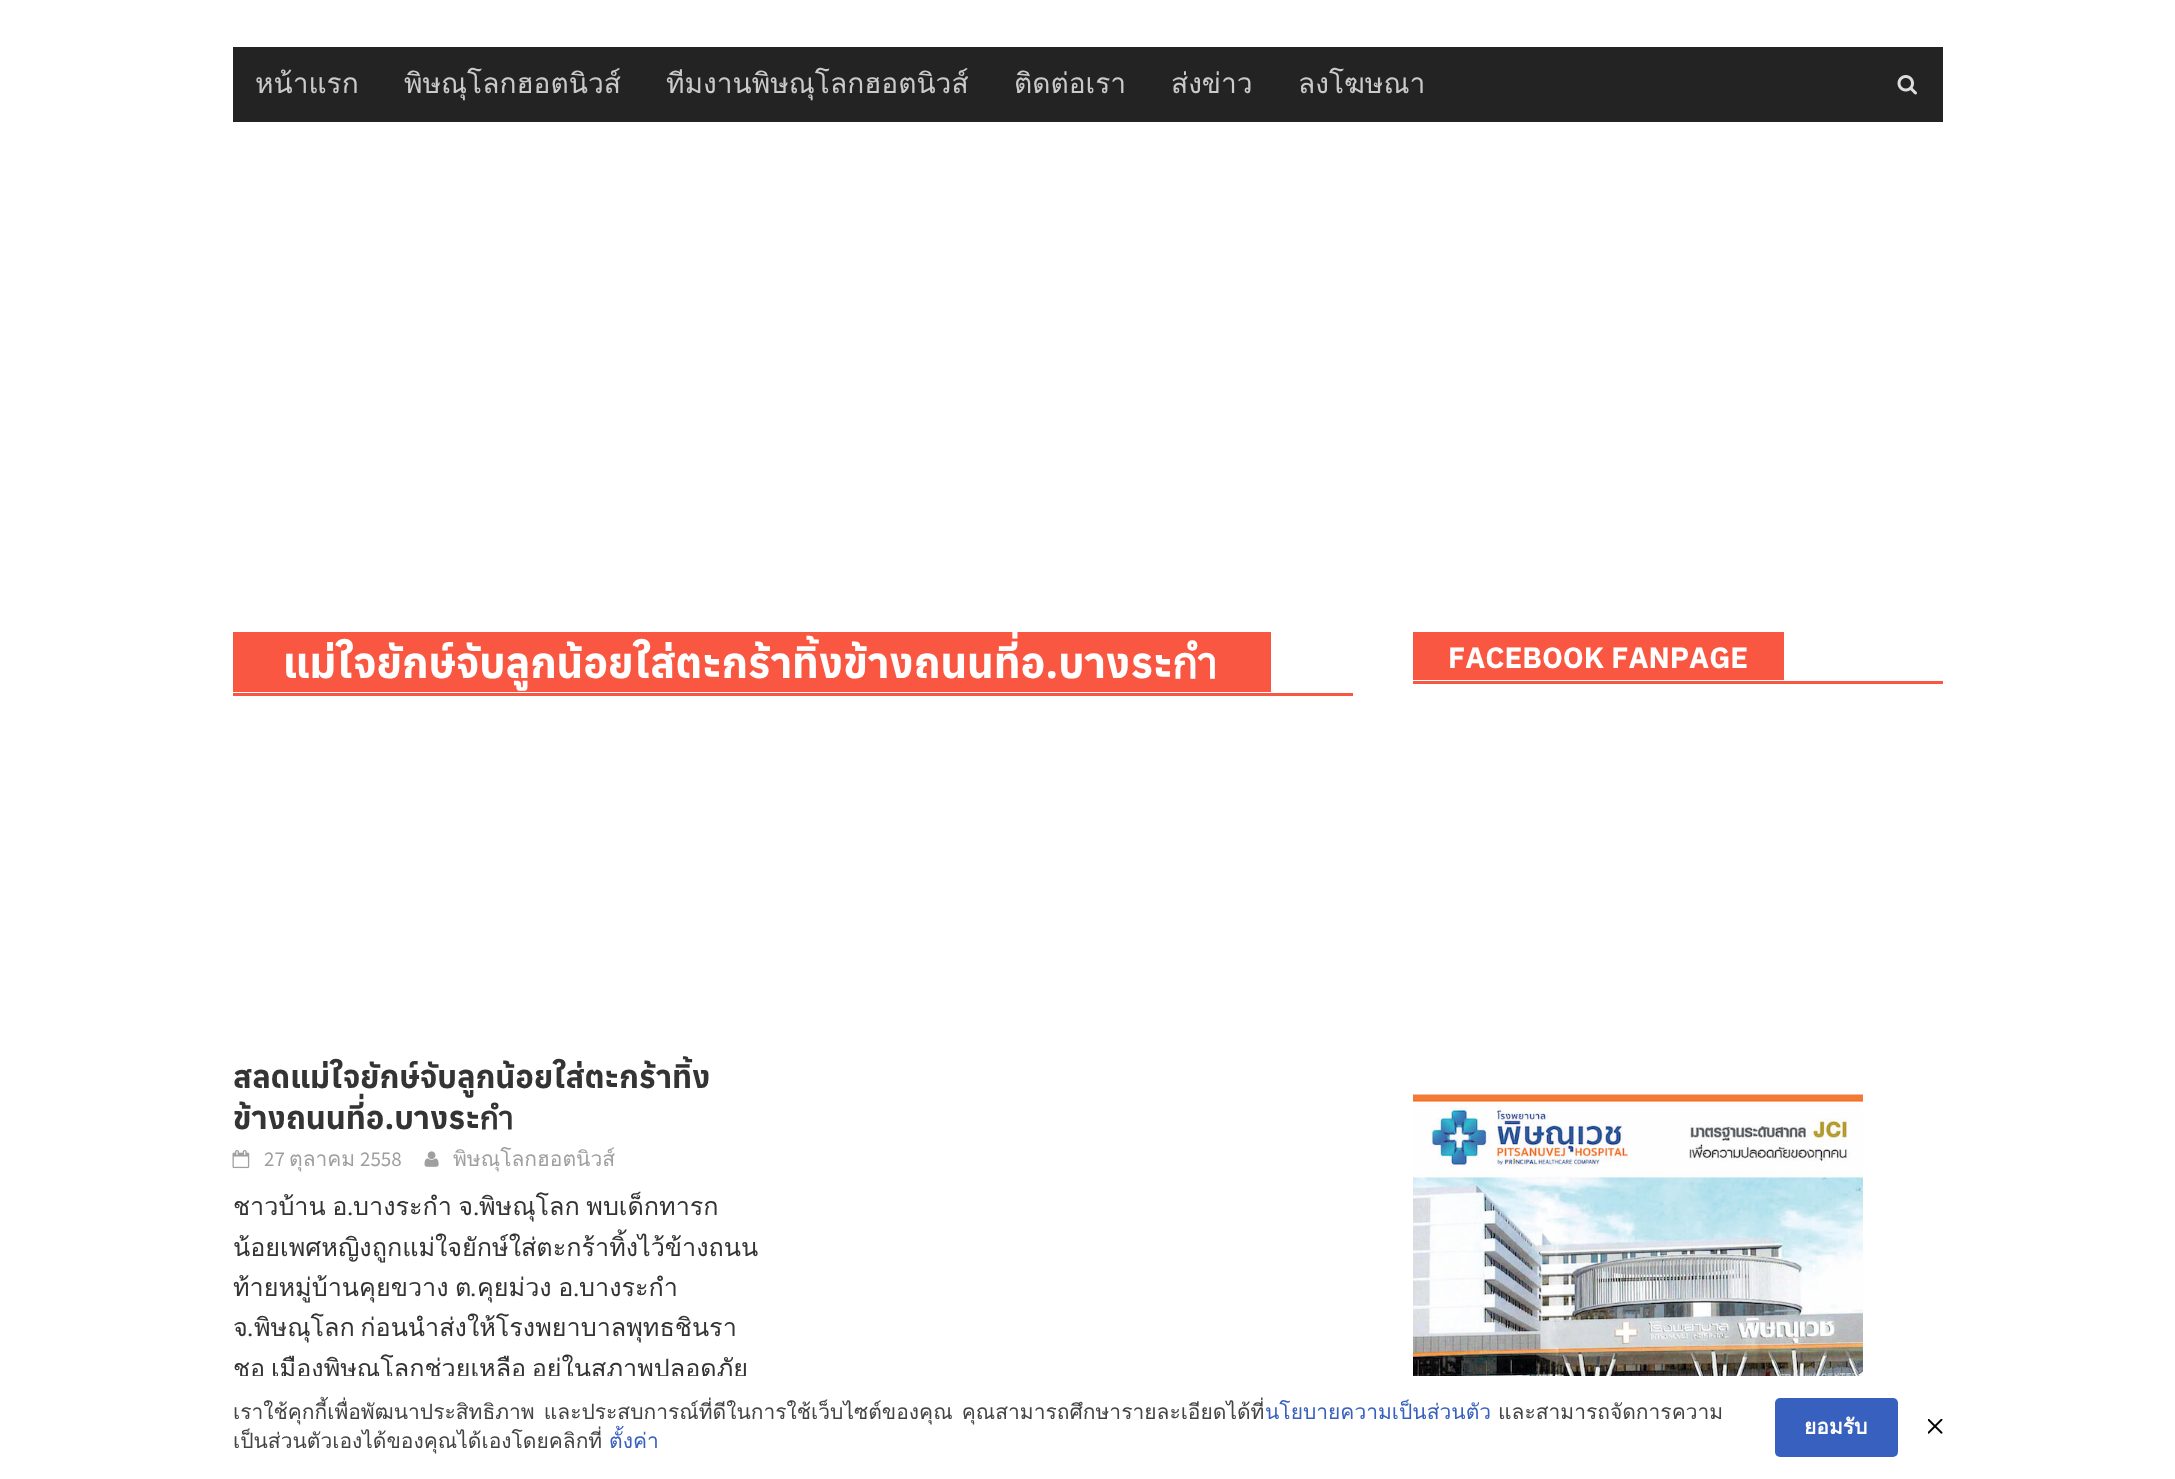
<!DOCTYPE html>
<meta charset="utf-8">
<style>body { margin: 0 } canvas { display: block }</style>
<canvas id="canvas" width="2175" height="1479"></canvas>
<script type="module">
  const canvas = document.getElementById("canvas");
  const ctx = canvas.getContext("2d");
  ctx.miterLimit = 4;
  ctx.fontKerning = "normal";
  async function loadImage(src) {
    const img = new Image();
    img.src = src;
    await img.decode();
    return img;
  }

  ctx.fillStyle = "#ffffff";
  ctx.fillRect(0, 0, 2175, 1479);
  ctx.fillStyle = "#232323";
  ctx.fillRect(233, 47, 1710, 75);
  ctx.font = "28.1px Loma";
  ctx.fillStyle = "#cacaca";
  ctx.fillText("หน้าแรก", 255, 93);
  ctx.fillText("พิษณุโลกฮอตนิวส์", 404, 93);
  ctx.fillText("ทีมงานพิษณุโลกฮอตนิวส์", 666, 93);
  ctx.fillText("ติดต่อเรา", 1014, 93);
  ctx.fillText("ส่งข่าว", 1171, 93);
  ctx.fillText("ลงโฆษณา", 1298, 93);
  ctx.drawImage(await loadImage("img1.png"), 1897, 75, 20, 20);
  ctx.fillStyle = "#fa5742";
  ctx.fillRect(233, 693, 1120, 3);
  ctx.fillRect(233, 632, 1038, 60);
  ctx.font = "bold 42px anuphan";
  ctx.fillStyle = "#ffffff";
  ctx.fillText("แม่ใจยักษ์จับลูกน้อยใส่ตะกร้าทิ้งข้างถนนที่อ.บางระกำ", 283, 678);
  ctx.font = "bold 31.5px anuphan";
  ctx.fillStyle = "#353434";
  ctx.fillText("สลดแม่ใจยักษ์จับลูกน้อยใส่ตะกร้าทิ้ง", 233, 1088);
  ctx.fillText("ข้างถนนที่อ.บางระกำ", 233, 1129);
  ctx.drawImage(await loadImage("img2.png"), 232, 1150, 18, 19);
  ctx.font = "21px Source Sans Pro";
  ctx.fillStyle = "#9f9f9f";
  ctx.fillText("27", 264, 1166);
  ctx.font = "21px Loma";
  ctx.fillText("ตุลาคม", 289, 1166);
  ctx.font = "21px Source Sans Pro";
  ctx.fillText("2558", 360, 1166);
  ctx.drawImage(await loadImage("img3.png"), 424, 1151, 15, 16);
  ctx.font = "21px Loma";
  ctx.fillText("พิษณุโลกฮอตนิวส์", 453, 1166);
  ctx.wordSpacing = "-2px";
  ctx.font = "25.2px Loma";
  ctx.fillStyle = "#353434";
  ctx.fillText("ชาวบ้าน อ", 233, 1215);
  ctx.wordSpacing = "0px";
  ctx.font = "25.2px Liberation Serif";
  ctx.fillText(".", 347, 1215);
  ctx.wordSpacing = "-2px";
  ctx.font = "25.2px Loma";
  ctx.fillText("บางระกำ จ", 353, 1215);
  ctx.wordSpacing = "0px";
  ctx.font = "25.2px Liberation Serif";
  ctx.fillText(".", 473, 1215);
  ctx.wordSpacing = "-2px";
  ctx.font = "25.2px Loma";
  ctx.fillText("พิษณุโลก พบเด็กทารก", 479, 1215);
  ctx.wordSpacing = "0px";
  ctx.fillText("น้อยเพศหญิงถูกแม่ใจยักษ์ใส่ตะกร้าทิ้งไว้ข้างถนน", 233, 1256);
  ctx.wordSpacing = "-2px";
  ctx.fillText("ท้ายหมู่บ้านคุยขวาง ต", 233, 1296);
  ctx.wordSpacing = "0px";
  ctx.font = "25.2px Liberation Serif";
  ctx.fillText(".", 470, 1296);
  ctx.wordSpacing = "-2px";
  ctx.font = "25.2px Loma";
  ctx.fillText("คุยม่วง อ", 477, 1296);
  ctx.wordSpacing = "0px";
  ctx.fillText("บางระกำ", 579, 1296);
  ctx.font = "25.2px Liberation Serif";
  ctx.fillText(".", 573, 1296);
  ctx.font = "25.2px Loma";
  ctx.fillText("จ", 233, 1336);
  ctx.font = "25.2px Liberation Serif";
  ctx.fillText(".", 247, 1336);
  ctx.wordSpacing = "-3px";
  ctx.font = "25.2px Loma";
  ctx.fillText("พิษณุโลก ก่อนนำส่งให้โรงพยาบาลพุทธชินรา", 254, 1336);
  ctx.wordSpacing = "0px";
  ctx.fillText("ชอ", 233, 1377);
  ctx.wordSpacing = "-3px";
  ctx.fillText("เมืองพิษณุโลกช่วยเหลือ อยู่ในสภาพปลอดภัย", 271, 1377);
  ctx.fillStyle = "#fa5742";
  ctx.fillRect(1413, 681, 530, 3);
  ctx.fillRect(1413, 632, 371, 48);
  ctx.wordSpacing = "0px";
  ctx.font = "bold 29.4px anuphan";
  ctx.fillStyle = "#ffffff";
  ctx.fillText("FACEBOOK FANPAGE", 1448, 668);
  ctx.drawImage(await loadImage("img4.png"), 1413, 1094, 450, 282);
  ctx.fillRect(239, 1376, 508, 8);
  ctx.wordSpacing = "2px";
  ctx.font = "21px Loma";
  ctx.fillStyle = "#444444";
  ctx.fillText("เราใช้คุกกี้เพื่อพัฒนาประสิทธิภาพ และประสบการณ์ที่ดีในการใช้เว็บไซต์ของคุณ คุณสามารถศึกษารายละเอียดได้ที่", 233, 1419);
  ctx.wordSpacing = "0px";
  ctx.fillStyle = "#3860be";
  ctx.fillText("นโยบายความเป็นส่วนตัว", 1265, 1419);
  ctx.fillStyle = "#444444";
  ctx.fillText("และสามารถจัดการความ", 1498, 1419);
  ctx.fillText("เป็นส่วนตัวเองได้ของคุณได้เองโดยคลิกที่", 233, 1448);
  ctx.fillStyle = "#3860be";
  ctx.fillText("ตั้งค่า", 609, 1448);
  ctx.beginPath();
  ctx.roundRect(1775, 1398, 123, 59, 5);
  ctx.fill();
  ctx.font = "bold 21px Loma";
  ctx.fillStyle = "#ffffff";
  ctx.fillText("ยอมรับ", 1804, 1434);
  ctx.drawImage(await loadImage("img5.png"), 1928, 1419, 15, 15);
</script>
